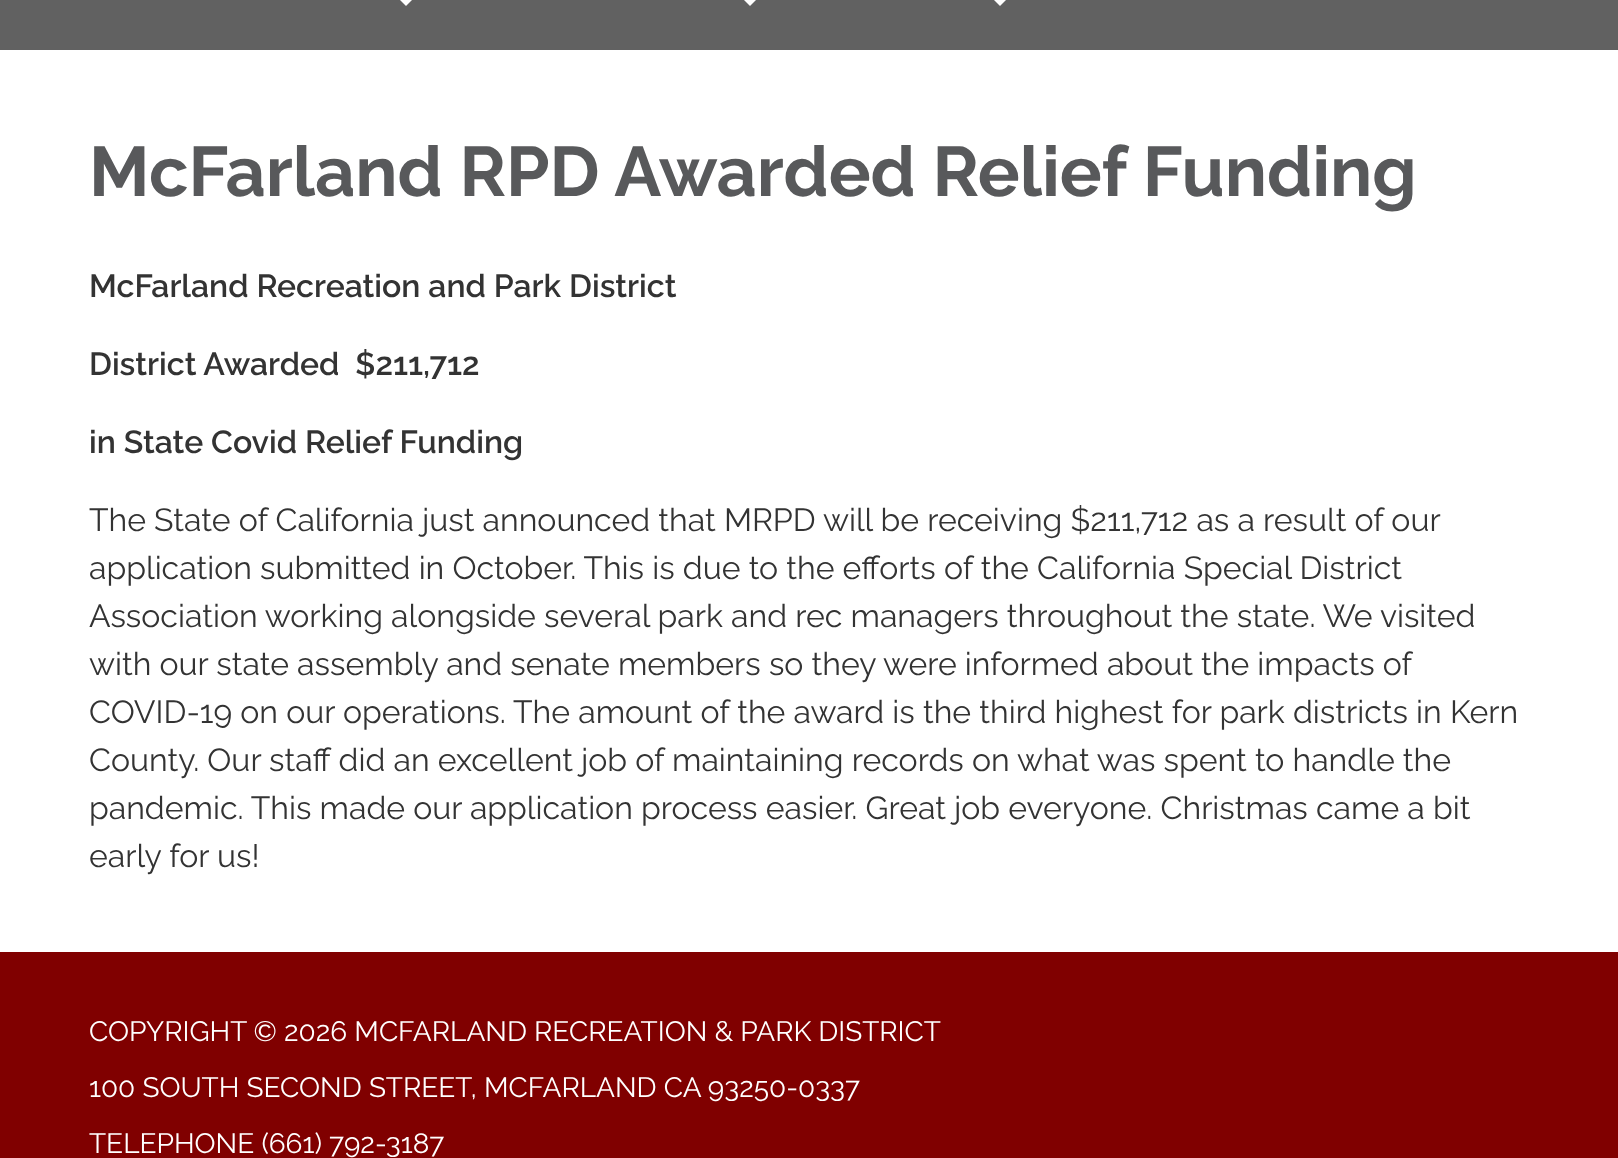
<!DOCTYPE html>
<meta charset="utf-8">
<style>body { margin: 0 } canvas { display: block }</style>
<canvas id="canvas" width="1618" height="1158"></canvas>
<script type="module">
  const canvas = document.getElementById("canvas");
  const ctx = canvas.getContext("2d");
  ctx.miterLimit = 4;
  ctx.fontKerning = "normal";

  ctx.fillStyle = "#616161";
  ctx.fillRect(0, 0, 1618, 1158);
  ctx.fillStyle = "#ffffff";
  ctx.beginPath();
  ctx.moveTo(398, -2);
  ctx.lineTo(414, -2);
  ctx.lineTo(406, 6);
  ctx.closePath();
  ctx.fill();
  ctx.beginPath();
  ctx.moveTo(742, -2);
  ctx.lineTo(758, -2);
  ctx.lineTo(750, 6);
  ctx.closePath();
  ctx.fill();
  ctx.beginPath();
  ctx.moveTo(992, -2);
  ctx.lineTo(1008, -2);
  ctx.lineTo(1000, 6);
  ctx.closePath();
  ctx.fill();
  ctx.fillRect(0, 50, 1618, 902);
  ctx.font = "bold 70px Raleway";
  ctx.fillStyle = "#58595b";
  ctx.fillText("McFarland RPD Awarded Relief Funding", 89, 196);
  ctx.font = "600 32px Raleway";
  ctx.fillStyle = "#333333";
  ctx.fillText("McFarland Recreation and Park District", 89, 297);
  ctx.fillText("District Awarded  $211,712", 89, 375);
  ctx.fillText("in State Covid Relief Funding", 89, 453);
  ctx.font = "32px Raleway";
  ctx.fillText("The State of California just announced that MRPD will be receiving $211,712 as a result of our", 89, 531);
  ctx.fillText("application submitted in October. This is due to the efforts of the California Special District", 89, 579);
  ctx.fillText("Association working alongside several park and rec managers throughout the state. We visited", 89, 627);
  ctx.fillText("with our state assembly and senate members so they were informed about the impacts of", 89, 675);
  ctx.fillText("COVID-19 on our operations. The amount of the award is the third highest for park districts in Kern", 89, 723);
  ctx.fillText("County. Our staff did an excellent job of maintaining records on what was spent to handle the", 89, 771);
  ctx.fillText("pandemic. This made our application process easier. Great job everyone. Christmas came a bit", 89, 819);
  ctx.fillText("early for us!", 89, 867);
  ctx.fillStyle = "#800000";
  ctx.fillRect(0, 952, 1618, 206);
  ctx.font = "28px Raleway";
  ctx.fillStyle = "#ffffff";
  ctx.fillText("COPYRIGHT © 2026 MCFARLAND RECREATION & PARK DISTRICT", 89, 1041);
  ctx.fillText("100 SOUTH SECOND STREET, MCFARLAND CA 93250-0337", 89, 1097);
  ctx.fillText("TELEPHONE (661) 792-3187", 89, 1153);
</script>
